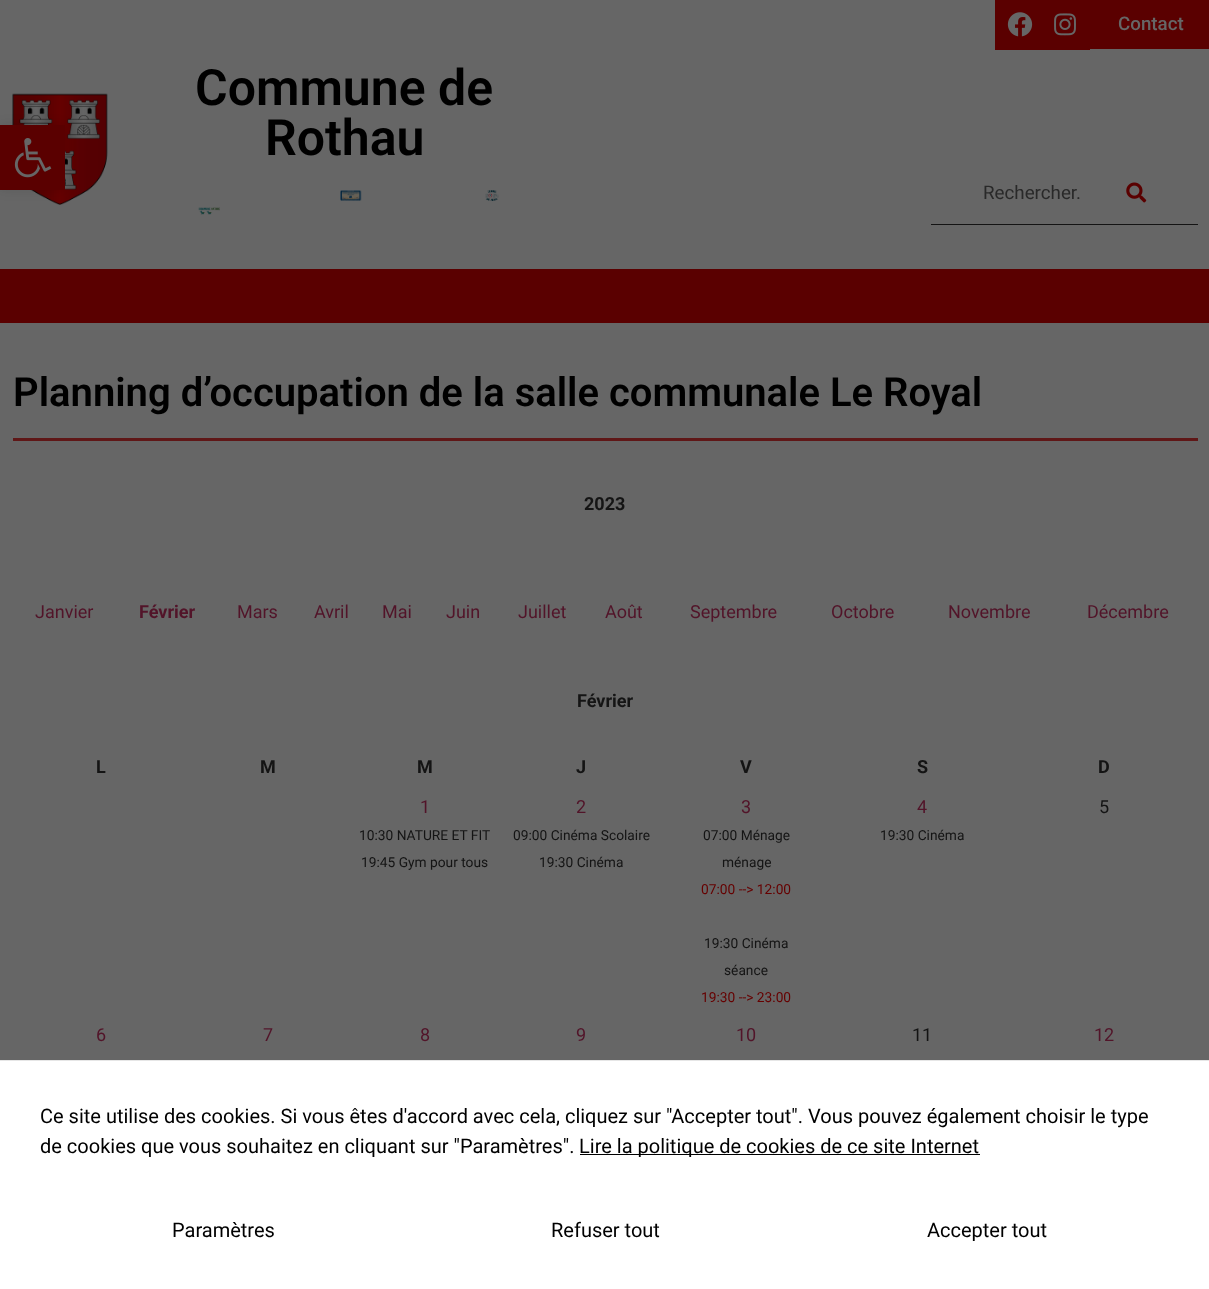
<!DOCTYPE html>
<meta charset="utf-8">
<style>body { margin: 0 } canvas { display: block }</style>
<canvas id="canvas" width="1209" height="1289"></canvas>
<script type="module">
  const canvas = document.getElementById("canvas");
  const ctx = canvas.getContext("2d");
  ctx.miterLimit = 4;
  ctx.fontKerning = "normal";
  async function loadImage(src) {
    const img = new Image();
    img.src = src;
    await img.decode();
    return img;
  }

  ctx.fillStyle = "#666666";
  ctx.fillRect(0, 0, 1209, 1289);
  ctx.drawImage(await loadImage("img4.png"), 12, 93, 96, 112);
  ctx.fillStyle = "rgba(0, 0, 0, 0.1)";
  ctx.filter = "blur(6px)";
  ctx.beginPath();
  ctx.rect(0, 125, 65, 65);
  ctx.fill();
  ctx.filter = "none";
  ctx.fillStyle = "#5a0000";
  ctx.fillRect(0, 125, 65, 65);
  ctx.drawImage(await loadImage("img1.png"), 14, 138, 38, 40);
  ctx.fillRect(995, 0, 95, 50);
  ctx.drawImage(await loadImage("img2.png"), 1007, 12, 26, 25);
  ctx.drawImage(await loadImage("img3.png"), 1054, 13, 22, 23);
  ctx.fillRect(1090, 0, 119, 49);
  ctx.font = "500 18.75px Roboto";
  ctx.fillStyle = "#666666";
  ctx.fillText("Contact", 1118, 30);
  ctx.font = "600 50px Roboto";
  ctx.fillStyle = "#000000";
  ctx.fillText("Commune de", 195, 105);
  ctx.fillText("Rothau", 265, 155);
  ctx.drawImage(await loadImage("img5.png"), 340, 190, 22, 11);
  ctx.drawImage(await loadImage("img6.png"), 485, 190, 14, 11);
  ctx.drawImage(await loadImage("img7.png"), 198, 207, 22, 8);
  ctx.fillStyle = "#141414";
  ctx.fillRect(931, 224, 267, 1);
  ctx.font = "18.75px Roboto";
  ctx.fillStyle = "#292929";
  ctx.fillText("Rechercher.", 983, 199);
  ctx.drawImage(await loadImage("img8.png"), 1126, 182, 21, 21);
  ctx.fillStyle = "#5a0000";
  ctx.fillRect(0, 269, 1209, 54);
  ctx.font = "600 40px Roboto";
  ctx.fillStyle = "#000000";
  ctx.fillText("Planning d’occupation de la salle communale Le Royal", 13, 406);
  ctx.fillStyle = "#5f1717";
  ctx.fillRect(13, 438, 1185, 3);
  ctx.font = "bold 18px Roboto";
  ctx.fillStyle = "#141414";
  ctx.fillText("2023", 584, 510);
  ctx.font = "18px Roboto";
  ctx.fillStyle = "#521429";
  ctx.fillText("Janvier", 35, 618);
  ctx.font = "bold 18px Roboto";
  ctx.fillText("Février", 139, 618);
  ctx.font = "18px Roboto";
  ctx.fillText("Mars", 237, 618);
  ctx.fillText("Avril", 314, 618);
  ctx.fillText("Mai", 382, 618);
  ctx.fillText("Juin", 446, 618);
  ctx.fillText("Juillet", 518, 618);
  ctx.fillText("Août", 605, 618);
  ctx.fillText("Septembre", 690, 618);
  ctx.fillText("Octobre", 831, 618);
  ctx.fillText("Novembre", 948, 618);
  ctx.fillText("Décembre", 1087, 618);
  ctx.font = "bold 18px Roboto";
  ctx.fillStyle = "#141414";
  ctx.fillText("Février", 577, 707);
  ctx.fillText("L", 96, 773);
  ctx.fillText("M", 260, 773);
  ctx.fillText("M", 417, 773);
  ctx.fillText("J", 576, 773);
  ctx.fillText("V", 740, 773);
  ctx.fillText("S", 917, 773);
  ctx.fillText("D", 1098, 773);
  ctx.font = "18px Roboto";
  ctx.fillStyle = "#521429";
  ctx.fillText("1", 420, 813);
  ctx.font = "13.75px Roboto";
  ctx.fillStyle = "#141414";
  ctx.fillText("10:30 NATURE ET FIT", 359, 840);
  ctx.fillText("19:45 Gym pour tous", 361, 867);
  ctx.font = "18px Roboto";
  ctx.fillStyle = "#521429";
  ctx.fillText("2", 576, 813);
  ctx.font = "13.75px Roboto";
  ctx.fillStyle = "#141414";
  ctx.fillText("09:00 Cinéma Scolaire", 513, 840);
  ctx.fillText("19:30 Cinéma", 539, 867);
  ctx.font = "18px Roboto";
  ctx.fillStyle = "#521429";
  ctx.fillText("3", 741, 813);
  ctx.font = "13.75px Roboto";
  ctx.fillStyle = "#141414";
  ctx.fillText("07:00 Ménage", 703, 840);
  ctx.fillText("ménage", 722, 867);
  ctx.fillStyle = "#660000";
  ctx.fillText("07:00 --> 12:00", 701, 894);
  ctx.fillStyle = "#141414";
  ctx.fillText("19:30 Cinéma", 704, 948);
  ctx.fillText("séance", 724, 975);
  ctx.fillStyle = "#660000";
  ctx.fillText("19:30 --> 23:00", 701, 1002);
  ctx.font = "18px Roboto";
  ctx.fillStyle = "#521429";
  ctx.fillText("4", 917, 813);
  ctx.font = "13.75px Roboto";
  ctx.fillStyle = "#141414";
  ctx.fillText("19:30 Cinéma", 880, 840);
  ctx.font = "18px Roboto";
  ctx.fillText("5", 1099, 813);
  ctx.fillStyle = "#521429";
  ctx.fillText("6", 96, 1041);
  ctx.fillText("7", 263, 1041);
  ctx.fillText("8", 420, 1041);
  ctx.fillText("9", 576, 1041);
  ctx.fillText("10", 736, 1041);
  ctx.fillStyle = "#141414";
  ctx.fillText("11", 912, 1041);
  ctx.fillStyle = "#521429";
  ctx.fillText("12", 1094, 1041);
  ctx.fillStyle = "#ffffff";
  ctx.fillRect(0, 1061, 1209, 228);
  ctx.fillStyle = "#e6e6e6";
  ctx.fillRect(0, 1060, 1209, 1);
  ctx.font = "20px Roboto";
  ctx.fillStyle = "#000000";
  ctx.fillText("Ce site utilise des cookies. Si vous êtes d'accord avec cela, cliquez sur \"Accepter tout\". Vous pouvez également choisir le type", 40, 1123);
  ctx.fillText("de cookies que vous souhaitez en cliquant sur \"Paramètres\".", 40, 1153);
  ctx.fillRect(580, 1154, 400, 1);
  ctx.fillText("Lire la politique de cookies de ce site Internet", 579, 1153);
  ctx.fillText("Paramètres", 172, 1237);
  ctx.fillText("Refuser tout", 551, 1237);
  ctx.fillText("Accepter tout", 927, 1237);
</script>
